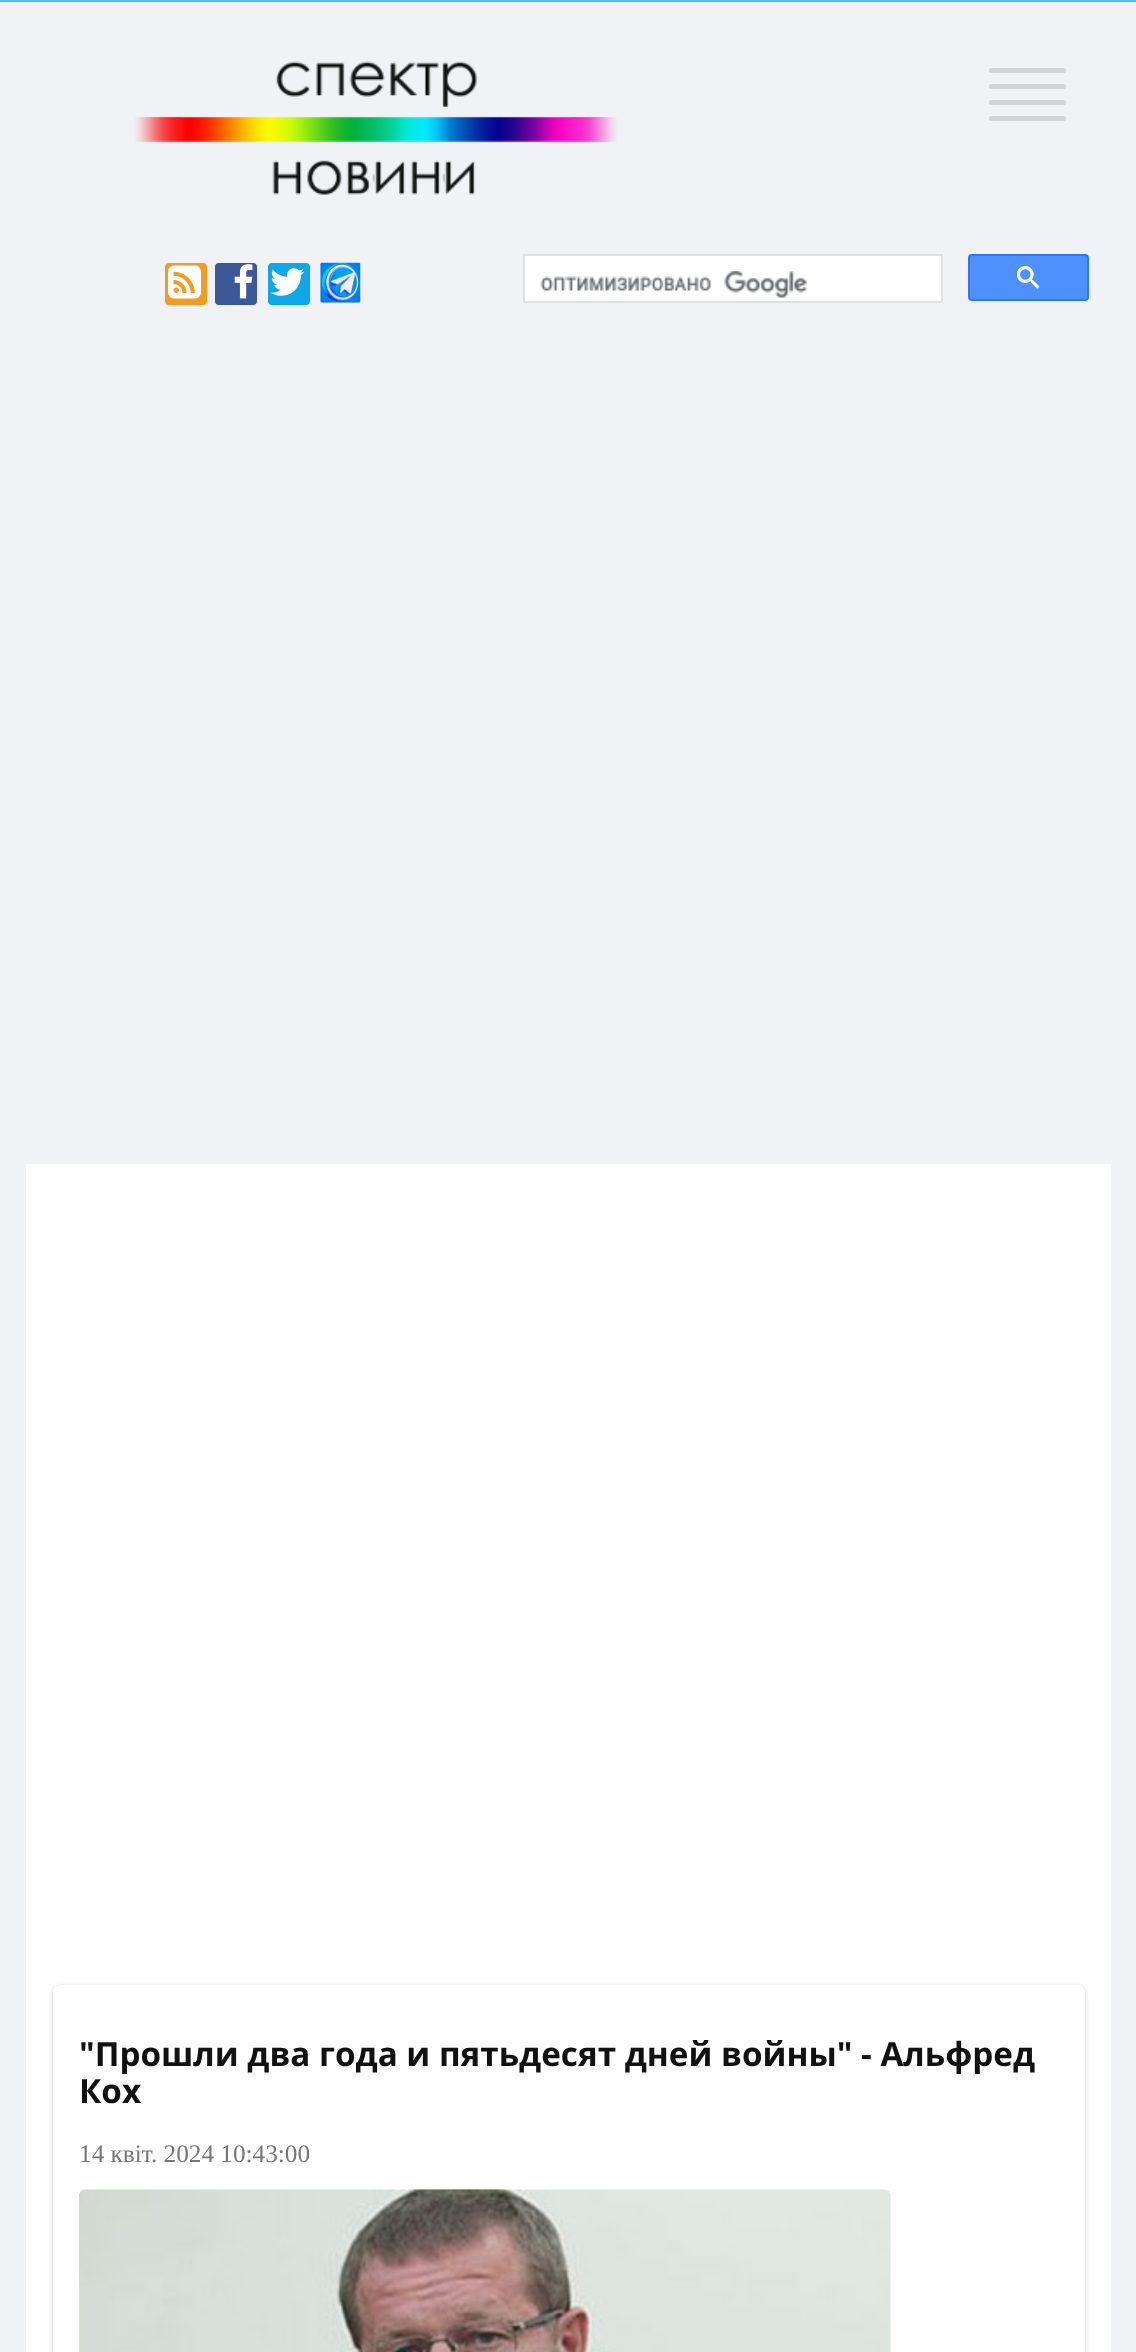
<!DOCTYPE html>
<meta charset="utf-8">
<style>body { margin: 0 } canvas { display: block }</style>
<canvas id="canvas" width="1136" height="2352"></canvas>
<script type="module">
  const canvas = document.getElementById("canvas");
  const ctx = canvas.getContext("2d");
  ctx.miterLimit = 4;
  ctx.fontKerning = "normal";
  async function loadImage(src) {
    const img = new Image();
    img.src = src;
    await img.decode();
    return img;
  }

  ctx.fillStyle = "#f1f2f6";
  ctx.fillRect(0, 0, 1136, 2352);
  ctx.fillStyle = "#50c1e9";
  ctx.fillRect(0, 0, 1136, 2);
  ctx.drawImage(await loadImage("img1.png"), 135, 61, 482, 134);
  ctx.fillStyle = "#d4d4d4";
  ctx.beginPath();
  ctx.roundRect(989, 68, 77, 5, 2);
  ctx.fill();
  ctx.beginPath();
  ctx.roundRect(989, 84, 77, 5, 2);
  ctx.fill();
  ctx.beginPath();
  ctx.roundRect(989, 100, 77, 5, 2);
  ctx.fill();
  ctx.beginPath();
  ctx.roundRect(989, 116, 77, 5, 2);
  ctx.fill();
  ctx.fillStyle = "#f19c25";
  ctx.beginPath();
  ctx.roundRect(165, 263, 42, 42, 4);
  ctx.fill();
  ctx.drawImage(await loadImage("img2.png"), 168, 265, 33, 34);
  ctx.fillStyle = "#3b5998";
  ctx.beginPath();
  ctx.roundRect(215, 263, 42, 42, 4);
  ctx.fill();
  ctx.drawImage(await loadImage("img3.png"), 234, 264, 19, 35);
  ctx.fillStyle = "#0fa7ea";
  ctx.beginPath();
  ctx.roundRect(268, 263, 42, 42, 4);
  ctx.fill();
  ctx.drawImage(await loadImage("img4.png"), 270, 268, 35, 28);
  ctx.drawImage(await loadImage("img5.png"), 320, 262, 41, 41);
  ctx.fillStyle = "#ffffff";
  ctx.beginPath();
  ctx.rect(524, 255, 418, 47);
  ctx.fill();
  ctx.strokeStyle = "#dfe1e5";
  ctx.lineWidth = 2;
  ctx.stroke();
  ctx.drawImage(await loadImage("img6.png"), 540, 271, 267, 27);
  ctx.fillStyle = "#4d90fe";
  ctx.beginPath();
  ctx.roundRect(969, 255, 119, 45, 3);
  ctx.fill();
  ctx.strokeStyle = "#3079ed";
  ctx.stroke();
  ctx.drawImage(await loadImage("img7.png"), 1017, 266, 23, 23);
  ctx.fillStyle = "#ffffff";
  ctx.fillRect(26, 1164, 1085, 1188);
  ctx.fillStyle = "rgba(0, 0, 0, 0.2)";
  ctx.filter = "blur(2px)";
  ctx.beginPath();
  ctx.roundRect(53, 1986, 1032, 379, 7);
  ctx.fill();
  ctx.filter = "none";
  ctx.fillStyle = "#ffffff";
  ctx.beginPath();
  ctx.roundRect(53, 1985, 1032, 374, 7);
  ctx.fill();
  ctx.font = "bold 33.25px Open Sans";
  ctx.fillStyle = "#111111";
  ctx.fillText("\"Прошли два года и пятьдесят дней войны\" - Альфред", 79, 2066);
  ctx.fillText("Кох", 79, 2103);
  ctx.font = "25.25px Liberation Serif";
  ctx.fillStyle = "#777777";
  ctx.fillText("14 квіт. 2024 10:43:00", 79, 2162);
  ctx.drawImage(await loadImage("img8.png"), 79, 2189, 812, 163);
</script>
